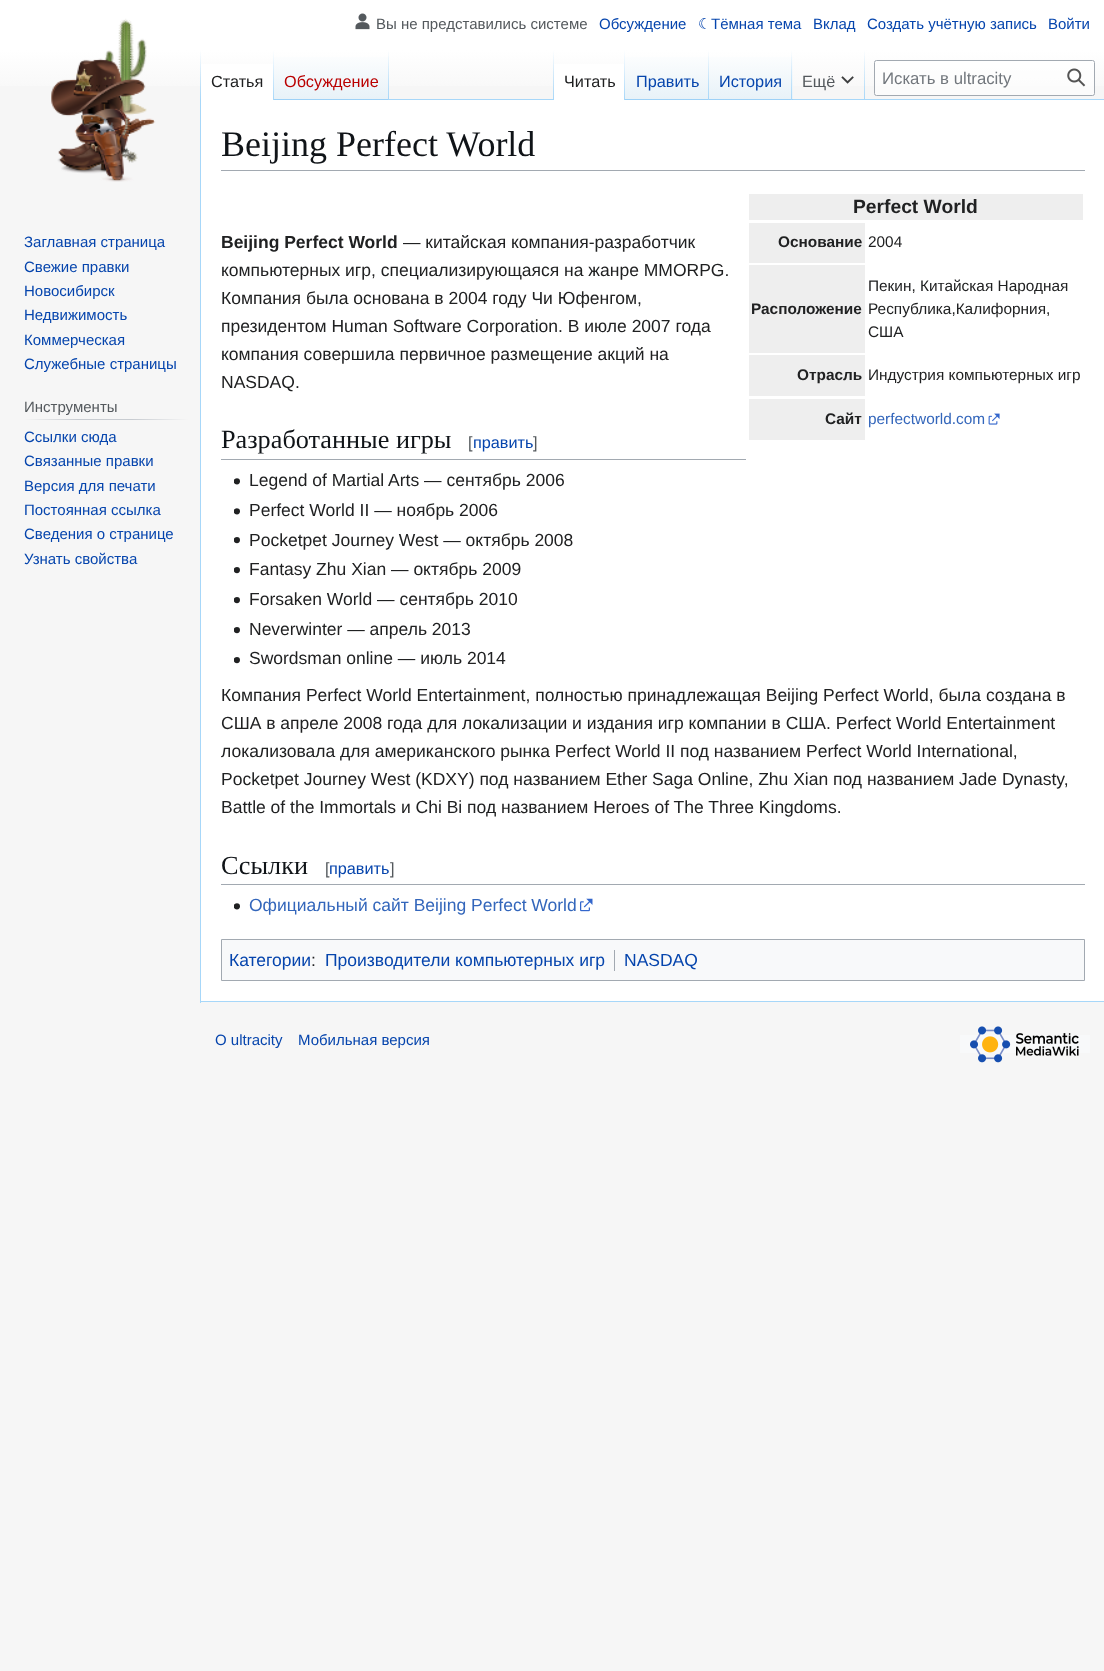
<!DOCTYPE html>
<meta charset="utf-8">
<style>body { margin: 0 } canvas { display: block }</style>
<canvas id="canvas" width="1104" height="1671"></canvas>
<script type="module">
  const canvas = document.getElementById("canvas");
  const ctx = canvas.getContext("2d");
  ctx.miterLimit = 4;
  ctx.fontKerning = "normal";
  async function loadImage(src) {
    const img = new Image();
    img.src = src;
    await img.decode();
    return img;
  }
  let gradient;

  ctx.fillStyle = "#f6f6f6";
  ctx.fillRect(0, 0, 1104, 1671);
  gradient = ctx.createLinearGradient(553, 0, 553, 100);
  gradient.addColorStop(0.5, "#ffffff");
  gradient.addColorStop(1, "#f6f6f6");
  ctx.fillStyle = gradient;
  ctx.fillRect(0, 0, 1104, 86);
  ctx.drawImage(await loadImage("img1.png"), 355, 13, 15, 17);
  ctx.font = "15px Liberation Sans";
  ctx.fillStyle = "#54595d";
  ctx.fillText("Вы не представились системе", 376, 29);
  ctx.fillStyle = "#0645ad";
  ctx.fillText("Обсуждение", 599, 29);
  ctx.font = "15px DejaVu Sans";
  ctx.fillText("☾", 698, 29);
  ctx.font = "15px Liberation Sans";
  ctx.fillText("Тёмная тема", 711, 29);
  ctx.fillText("Вклад", 813, 29);
  ctx.fillText("Создать учётную запись", 867, 29);
  ctx.fillText("Войти", 1048, 29);
  ctx.fillStyle = "#a7d7f9";
  ctx.fillRect(200, 1001, 904, 1);
  ctx.fillRect(200, 99, 1, 904);
  gradient = ctx.createLinearGradient(201, 50, 201, 100);
  gradient.addColorStop(0, "rgba(167, 215, 249, 0)");
  gradient.addColorStop(1, "#a7d7f9");
  ctx.fillStyle = gradient;
  ctx.fillRect(200, 50, 1, 50);
  ctx.fillStyle = "#ffffff";
  ctx.fillRect(201, 64, 72, 36);
  gradient = ctx.createLinearGradient(273, 50, 273, 100);
  gradient.addColorStop(0, "#ffffff");
  gradient.addColorStop(1, "#a7d7f9");
  ctx.fillStyle = gradient;
  ctx.fillRect(273, 50, 1, 50);
  ctx.font = "16.25px Liberation Sans";
  ctx.fillStyle = "#202122";
  ctx.fillText("Статья", 211, 87);
  gradient = ctx.createLinearGradient(331, 100, 331, 50);
  gradient.addColorStop(0, "#77c1f6");
  gradient.addColorStop(0.03, "#e8f2f8");
  gradient.addColorStop(1, "#ffffff");
  ctx.fillStyle = gradient;
  ctx.fillRect(274, 57, 115, 43);
  gradient = ctx.createLinearGradient(388, 50, 388, 100);
  gradient.addColorStop(0, "rgba(167, 215, 249, 0)");
  gradient.addColorStop(1, "#a7d7f9");
  ctx.fillStyle = gradient;
  ctx.fillRect(388, 50, 1, 50);
  ctx.fillStyle = "#ba0000";
  ctx.fillText("Обсуждение", 284, 87);
  ctx.fillStyle = "#a7d7f9";
  ctx.fillRect(389, 99, 715, 1);
  gradient = ctx.createLinearGradient(553, 50, 553, 100);
  gradient.addColorStop(0, "rgba(167, 215, 249, 0)");
  gradient.addColorStop(1, "#a7d7f9");
  ctx.fillStyle = gradient;
  ctx.fillRect(553, 50, 1, 50);
  ctx.fillStyle = "#ffffff";
  ctx.fillRect(554, 64, 70, 36);
  gradient = ctx.createLinearGradient(624, 50, 624, 100);
  gradient.addColorStop(0, "#ffffff");
  gradient.addColorStop(1, "#a7d7f9");
  ctx.fillStyle = gradient;
  ctx.fillRect(624, 50, 1, 50);
  ctx.fillStyle = "#202122";
  ctx.fillText("Читать", 564, 87);
  gradient = ctx.createLinearGradient(667, 100, 667, 50);
  gradient.addColorStop(0, "#77c1f6");
  gradient.addColorStop(0.03, "#e8f2f8");
  gradient.addColorStop(1, "#ffffff");
  ctx.fillStyle = gradient;
  ctx.fillRect(625, 57, 84, 43);
  gradient = ctx.createLinearGradient(708, 50, 708, 100);
  gradient.addColorStop(0, "rgba(167, 215, 249, 0)");
  gradient.addColorStop(1, "#a7d7f9");
  ctx.fillStyle = gradient;
  ctx.fillRect(708, 50, 1, 50);
  ctx.fillStyle = "#0645ad";
  ctx.fillText("Править", 636, 87);
  gradient = ctx.createLinearGradient(751, 100, 751, 50);
  gradient.addColorStop(0, "#77c1f6");
  gradient.addColorStop(0.03, "#e8f2f8");
  gradient.addColorStop(1, "#ffffff");
  ctx.fillStyle = gradient;
  ctx.fillRect(709, 57, 84, 43);
  gradient = ctx.createLinearGradient(792, 50, 792, 100);
  gradient.addColorStop(0, "rgba(167, 215, 249, 0)");
  gradient.addColorStop(1, "#a7d7f9");
  ctx.fillStyle = gradient;
  ctx.fillRect(791, 50, 1, 50);
  ctx.fillStyle = "#0645ad";
  ctx.fillText("История", 719, 87);
  gradient = ctx.createLinearGradient(864, 50, 864, 100);
  gradient.addColorStop(0, "rgba(167, 215, 249, 0)");
  gradient.addColorStop(1, "#a7d7f9");
  ctx.fillStyle = gradient;
  ctx.fillRect(864, 50, 1, 50);
  ctx.fillStyle = "#54595d";
  ctx.fillText("Ещё", 802, 87);
  ctx.drawImage(await loadImage("img2.png"), 841, 76, 13, 8);
  ctx.fillStyle = "rgba(255, 255, 255, 0.5)";
  ctx.beginPath();
  ctx.roundRect(874.5, 60.5, 220, 35, 2);
  ctx.fill();
  ctx.strokeStyle = "#a2a9b1";
  ctx.stroke();
  ctx.font = "16.75px Liberation Sans";
  ctx.fillStyle = "#72777d";
  ctx.fillText("Искать в ultracity", 882, 84);
  ctx.drawImage(await loadImage("img3.png"), 1067, 68, 19, 19);
  ctx.drawImage(await loadImage("img4.png"), 51, 18, 105, 164);
  ctx.font = "15px Liberation Sans";
  ctx.fillStyle = "#0645ad";
  ctx.fillText("Заглавная страница", 24, 247);
  ctx.fillText("Свежие правки", 24, 272);
  ctx.fillText("Новосибирск", 24, 296);
  ctx.fillText("Недвижимость", 24, 320);
  ctx.fillText("Коммерческая", 24, 345);
  ctx.fillText("Служебные страницы", 24, 369);
  gradient = ctx.createLinearGradient(24, 419, 188, 419);
  gradient.addColorStop(0, "#f6f6f6");
  gradient.addColorStop(0.33, "#c8ccd1");
  gradient.addColorStop(0.66, "#c8ccd1");
  gradient.addColorStop(1, "#f6f6f6");
  ctx.fillStyle = gradient;
  ctx.fillRect(24, 419, 164, 1);
  ctx.fillStyle = "#54595d";
  ctx.fillText("Инструменты", 24, 412);
  ctx.fillStyle = "#0645ad";
  ctx.fillText("Ссылки сюда", 24, 442);
  ctx.fillText("Связанные правки", 24, 466);
  ctx.fillText("Версия для печати", 24, 491);
  ctx.fillText("Постоянная ссылка", 24, 515);
  ctx.fillText("Сведения о странице", 24, 539);
  ctx.fillText("Узнать свойства", 24, 564);
  ctx.fillStyle = "#ffffff";
  ctx.fillRect(201, 100, 903, 901);
  ctx.fillStyle = "#a2a9b1";
  ctx.fillRect(221, 170, 864, 1);
  ctx.font = "36px Liberation Serif";
  ctx.fillStyle = "#101418";
  ctx.fillText("Beijing Perfect World", 221, 156);
  ctx.font = "bold 17.5px Liberation Sans";
  ctx.fillStyle = "#202122";
  ctx.fillText("Beijing Perfect World", 221, 248);
  ctx.font = "17.5px Liberation Sans";
  ctx.fillText("— китайская компания-разработчик", 403, 248);
  ctx.fillText("компьютерных игр, специализирующаяся на жанре MMORPG.", 221, 276);
  ctx.fillText("Компания была основана в 2004 году Чи Юфенгом,", 221, 304);
  ctx.fillText("президентом Human Software Corporation. В июле 2007 года", 221, 332);
  ctx.fillText("компания совершила первичное размещение акций на", 221, 360);
  ctx.fillText("NASDAQ.", 221, 388);
  ctx.fillStyle = "#eeeeee";
  ctx.fillRect(749, 194, 334, 26);
  ctx.font = "bold 19.25px Liberation Sans";
  ctx.fillStyle = "#202122";
  ctx.fillText("Perfect World", 853, 213);
  ctx.fillStyle = "#eeeeee";
  ctx.fillRect(749, 223, 116, 40);
  ctx.font = "bold 15.4px Liberation Sans";
  ctx.fillStyle = "#202122";
  ctx.fillText("Основание", 778, 247);
  ctx.font = "15.4px Liberation Sans";
  ctx.fillText("2004", 868, 247);
  ctx.fillStyle = "#eeeeee";
  ctx.fillRect(749, 265, 116, 88);
  ctx.font = "bold 15.4px Liberation Sans";
  ctx.fillStyle = "#202122";
  ctx.fillText("Расположение", 751, 314);
  ctx.font = "15.4px Liberation Sans";
  ctx.fillText("Пекин, Китайская Народная", 868, 291);
  ctx.fillText("Республика,Калифорния,", 868, 314);
  ctx.fillText("США", 868, 337);
  ctx.fillStyle = "#eeeeee";
  ctx.fillRect(749, 355, 116, 41);
  ctx.font = "bold 15.4px Liberation Sans";
  ctx.fillStyle = "#202122";
  ctx.fillText("Отрасль", 797, 380);
  ctx.font = "15.4px Liberation Sans";
  ctx.fillText("Индустрия компьютерных игр", 868, 380);
  ctx.fillStyle = "#eeeeee";
  ctx.fillRect(749, 399, 116, 41);
  ctx.font = "bold 15.4px Liberation Sans";
  ctx.fillStyle = "#202122";
  ctx.fillText("Сайт", 825, 424);
  ctx.font = "15.4px Liberation Sans";
  ctx.fillStyle = "#3366bb";
  ctx.fillText("perfectworld.com", 868, 424);
  ctx.drawImage(await loadImage("img5.png"), 988, 413, 12, 12);
  ctx.fillStyle = "#a2a9b1";
  ctx.fillRect(221, 459, 525, 1);
  ctx.font = "26.25px Liberation Serif";
  ctx.fillStyle = "#101418";
  ctx.fillText("Разработанные игры", 221, 448);
  ctx.font = "16.25px Liberation Sans";
  ctx.fillStyle = "#54595d";
  ctx.fillText("[", 468, 448);
  ctx.fillStyle = "#0645ad";
  ctx.fillText("править", 473, 448);
  ctx.fillStyle = "#54595d";
  ctx.fillText("]", 533, 448);
  ctx.drawImage(await loadImage("img6.png"), 234, 478, 6, 7);
  ctx.font = "17.5px Liberation Sans";
  ctx.fillStyle = "#202122";
  ctx.fillText("Legend of Martial Arts — сентябрь 2006", 249, 486);
  ctx.drawImage(await loadImage("img7.png"), 234, 508, 6, 7);
  ctx.fillText("Perfect World II — ноябрь 2006", 249, 516);
  ctx.drawImage(await loadImage("img8.png"), 234, 537, 6, 7);
  ctx.fillText("Pocketpet Journey West — октябрь 2008", 249, 546);
  ctx.drawImage(await loadImage("img8.png"), 234, 567, 6, 7);
  ctx.fillText("Fantasy Zhu Xian — октябрь 2009", 249, 575);
  ctx.drawImage(await loadImage("img8.png"), 234, 597, 6, 7);
  ctx.fillText("Forsaken World — сентябрь 2010", 249, 605);
  ctx.drawImage(await loadImage("img8.png"), 234, 627, 6, 7);
  ctx.fillText("Neverwinter — апрель 2013", 249, 635);
  ctx.drawImage(await loadImage("img8.png"), 234, 657, 6, 7);
  ctx.fillText("Swordsman online — июль 2014", 249, 664);
  ctx.fillText("Компания Perfect World Entertainment, полностью принадлежащая Beijing Perfect World, была создана в", 221, 701);
  ctx.fillText("США в апреле 2008 года для локализации и издания игр компании в США. Perfect World Entertainment", 221, 729);
  ctx.fillText("локализовала для американского рынка Perfect World II под названием Perfect World International,", 221, 757);
  ctx.fillText("Pocketpet Journey West (KDXY) под названием Ether Saga Online, Zhu Xian под названием Jade Dynasty,", 221, 785);
  ctx.fillText("Battle of the Immortals и Chi Bi под названием Heroes of The Three Kingdoms.", 221, 813);
  ctx.fillStyle = "#a2a9b1";
  ctx.fillRect(221, 884, 864, 1);
  ctx.font = "26.25px Liberation Serif";
  ctx.fillStyle = "#101418";
  ctx.fillText("Ссылки", 221, 874);
  ctx.font = "16.25px Liberation Sans";
  ctx.fillStyle = "#54595d";
  ctx.fillText("[", 325, 874);
  ctx.fillStyle = "#0645ad";
  ctx.fillText("править", 329, 874);
  ctx.fillStyle = "#54595d";
  ctx.fillText("]", 390, 874);
  ctx.drawImage(await loadImage("img6.png"), 234, 903, 6, 7);
  ctx.font = "17.5px Liberation Sans";
  ctx.fillStyle = "#3366bb";
  ctx.fillText("Официальный сайт Beijing Perfect World", 249, 911);
  ctx.drawImage(await loadImage("img9.png"), 580, 898, 13, 14);
  ctx.fillStyle = "#f8f9fa";
  ctx.beginPath();
  ctx.rect(221.5, 939.5, 863, 41);
  ctx.fill();
  ctx.stroke();
  ctx.fillStyle = "#0645ad";
  ctx.fillText("Категории", 229, 966);
  ctx.fillStyle = "#202122";
  ctx.fillText(":", 311, 966);
  ctx.fillStyle = "#0645ad";
  ctx.fillText("Производители компьютерных игр", 325, 966);
  ctx.fillStyle = "#a2a9b1";
  ctx.fillRect(614, 950, 1, 21);
  ctx.fillStyle = "#0645ad";
  ctx.fillText("NASDAQ", 624, 966);
  ctx.font = "15px Liberation Sans";
  ctx.fillText("О ultracity", 215, 1045);
  ctx.fillText("Мобильная версия", 298, 1045);
  ctx.fillStyle = "#f8f9fa";
  ctx.fillRect(960, 1035, 130, 18);
  ctx.drawImage(await loadImage("img10.png"), 970, 1026, 109, 37);
</script>
